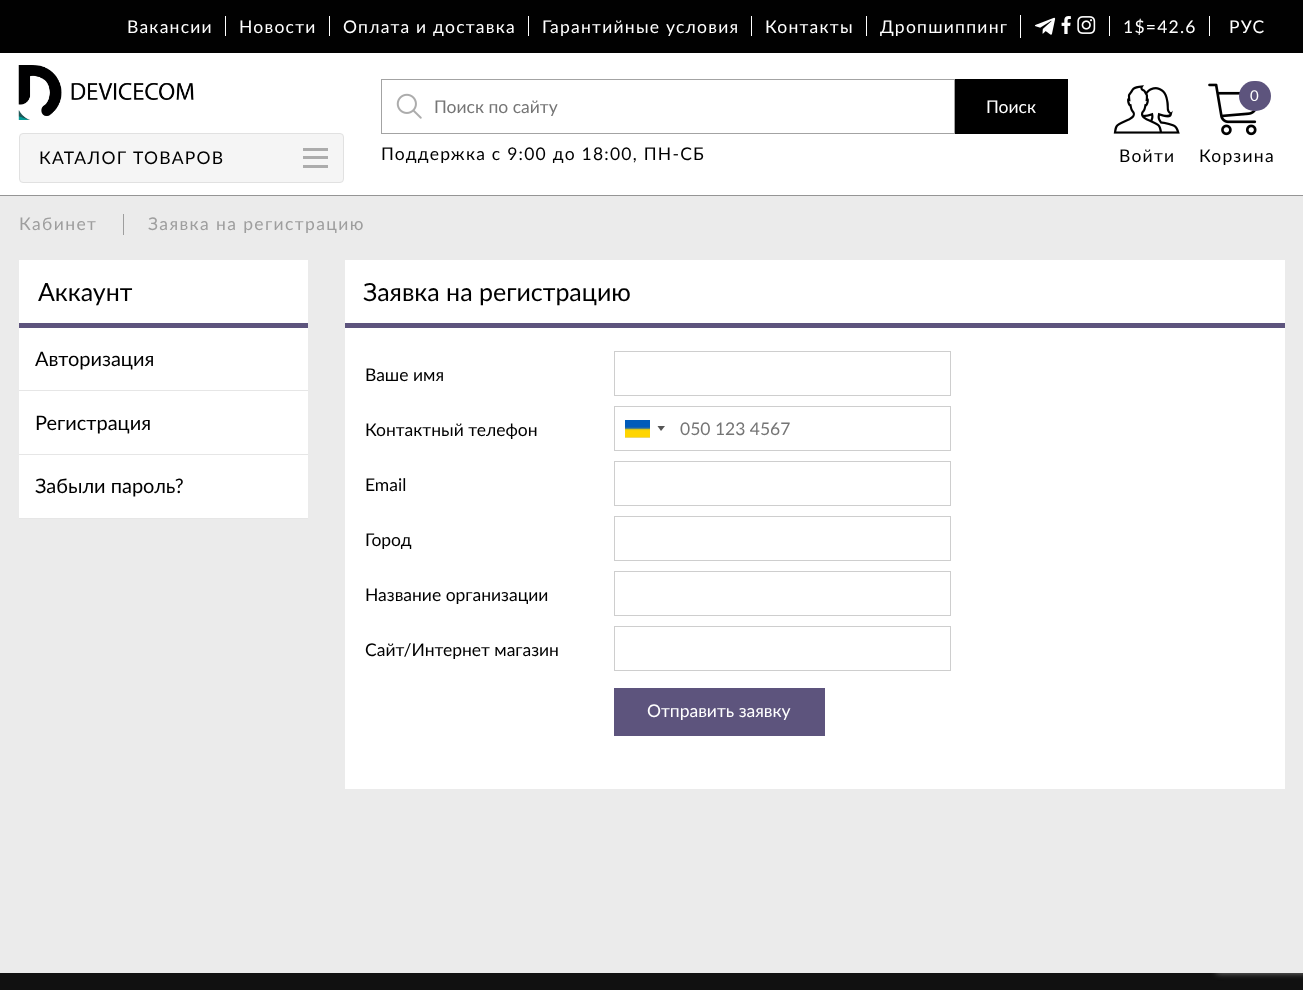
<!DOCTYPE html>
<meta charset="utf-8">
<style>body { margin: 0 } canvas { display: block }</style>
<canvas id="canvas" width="1303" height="990"></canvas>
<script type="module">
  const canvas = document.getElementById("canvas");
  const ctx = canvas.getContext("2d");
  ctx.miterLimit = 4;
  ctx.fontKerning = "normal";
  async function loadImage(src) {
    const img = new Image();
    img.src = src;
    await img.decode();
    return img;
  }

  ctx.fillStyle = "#ffffff";
  ctx.fillRect(0, 0, 1303, 990);
  ctx.fillStyle = "#010101";
  ctx.fillRect(0, 0, 1303, 53);
  ctx.letterSpacing = "1.25px";
  ctx.font = "17.5px Lato";
  ctx.fillStyle = "#ffffff";
  ctx.fillText("Вакансии", 127, 33);
  ctx.fillRect(225, 16, 1, 20);
  ctx.fillText("Новости", 239, 33);
  ctx.fillRect(329, 16, 1, 20);
  ctx.fillText("Оплата и доставка", 343, 33);
  ctx.fillRect(528, 16, 1, 20);
  ctx.fillText("Гарантийные условия", 542, 33);
  ctx.fillRect(751, 16, 1, 20);
  ctx.fillText("Контакты", 765, 33);
  ctx.fillRect(866, 16, 1, 20);
  ctx.fillText("Дропшиппинг", 880, 33);
  ctx.fillRect(1020, 15, 1, 23);
  ctx.drawImage(await loadImage("img1.png"), 1034, 17, 22, 18);
  ctx.drawImage(await loadImage("img2.png"), 1061, 16, 10, 18);
  ctx.drawImage(await loadImage("img3.png"), 1077, 16, 19, 18);
  ctx.fillRect(1109, 16, 1, 20);
  ctx.fillText("1$=42.6", 1123, 33);
  ctx.fillRect(1209, 16, 1, 20);
  ctx.fillText("РУС", 1229, 33);
  ctx.fillStyle = "#959595";
  ctx.fillRect(0, 195, 1303, 1);
  ctx.drawImage(await loadImage("img4.png"), 18, 65, 176, 55);
  ctx.fillStyle = "#f5f5f5";
  ctx.beginPath();
  ctx.roundRect(19.5, 133.5, 324, 49, 3.5);
  ctx.fill();
  ctx.strokeStyle = "#e1e1e1";
  ctx.stroke();
  ctx.fillStyle = "#000000";
  ctx.fillText("КАТАЛОГ ТОВАРОВ", 39, 164);
  ctx.fillStyle = "#acacac";
  ctx.fillRect(303, 148, 25, 3);
  ctx.fillRect(303, 156, 25, 3);
  ctx.fillRect(303, 165, 25, 3);
  ctx.strokeStyle = "#a3a3a3";
  ctx.strokeRect(381.5, 79.5, 573, 54);
  ctx.drawImage(await loadImage("img5.png"), 396, 93, 26, 26);
  ctx.letterSpacing = "0px";
  ctx.fillStyle = "#757575";
  ctx.fillText("Поиск по сайту", 434, 113);
  ctx.fillStyle = "#000000";
  ctx.fillRect(955, 79, 113, 55);
  ctx.fillStyle = "#ffffff";
  ctx.fillText("Поиск", 986, 113);
  ctx.letterSpacing = "1.25px";
  ctx.fillStyle = "#000000";
  ctx.fillText("Поддержка с 9:00 до 18:00, ПН-СБ", 381, 160);
  ctx.drawImage(await loadImage("img6.png"), 1113, 85, 67, 49);
  ctx.fillText("Войти", 1119, 162);
  ctx.drawImage(await loadImage("img7.png"), 1208, 83, 49, 53);
  ctx.fillStyle = "#5d547d";
  ctx.beginPath();
  ctx.roundRect(1239, 81, 32, 30, 15);
  ctx.fill();
  ctx.font = "15px Lato";
  ctx.fillStyle = "#ffffff";
  ctx.fillText("0", 1250, 101);
  ctx.font = "17.5px Lato";
  ctx.fillStyle = "#000000";
  ctx.fillText("Корзина", 1199, 162);
  ctx.fillStyle = "#111111";
  ctx.fillRect(0, 973, 1303, 17);
  ctx.fillStyle = "#808080";
  ctx.filter = "blur(3px)";
  ctx.beginPath();
  ctx.roundRect(1216, 898, 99, 75, 2.5);
  ctx.fill();
  ctx.filter = "none";
  ctx.fillStyle = "#ebebeb";
  ctx.fillRect(0, 196, 1303, 777);
  ctx.letterSpacing = "1.4px";
  ctx.fillStyle = "#9e9e9e";
  ctx.fillText("Кабинет", 19, 230);
  ctx.fillRect(123, 214, 1, 21);
  ctx.fillText("Заявка на регистрацию", 148, 230);
  ctx.fillStyle = "#ffffff";
  ctx.fillRect(19, 260, 289, 258);
  ctx.fillStyle = "#5d547d";
  ctx.fillRect(19, 323, 289, 5);
  ctx.letterSpacing = "0px";
  ctx.font = "25px Lato";
  ctx.fillStyle = "#000000";
  ctx.fillText("Аккаунт", 38, 301);
  ctx.fillStyle = "#e6e6e6";
  ctx.fillRect(19, 390, 289, 1);
  ctx.font = "20px Lato";
  ctx.fillStyle = "#000000";
  ctx.fillText("Авторизация", 35, 366);
  ctx.fillStyle = "#e6e6e6";
  ctx.fillRect(19, 454, 289, 1);
  ctx.fillStyle = "#000000";
  ctx.fillText("Регистрация", 35, 430);
  ctx.fillStyle = "#e6e6e6";
  ctx.fillRect(19, 518, 289, 1);
  ctx.fillStyle = "#000000";
  ctx.fillText("Забыли пароль?", 35, 493);
  ctx.fillStyle = "#ffffff";
  ctx.fillRect(345, 260, 940, 529);
  ctx.fillStyle = "#5d547d";
  ctx.fillRect(345, 323, 940, 5);
  ctx.font = "25px Lato";
  ctx.fillStyle = "#000000";
  ctx.fillText("Заявка на регистрацию", 363, 301);
  ctx.font = "17.5px Lato";
  ctx.fillText("Ваше имя", 365, 381);
  ctx.strokeStyle = "#cecece";
  ctx.strokeRect(614.5, 351.5, 336, 44);
  ctx.fillText("Контактный телефон", 365, 436);
  ctx.strokeRect(614.5, 406.5, 336, 44);
  ctx.fillStyle = "#888888";
  ctx.filter = "blur(0.5px)";
  ctx.beginPath();
  ctx.rect(625, 420, 25, 18);
  ctx.fill();
  ctx.filter = "none";
  ctx.fillStyle = "#dbdbdb";
  ctx.fillRect(625, 437, 25, 1);
  ctx.drawImage(await loadImage("img8.png"), 625, 420, 25, 18);
  ctx.fillStyle = "#555555";
  ctx.beginPath();
  ctx.moveTo(657.5, 426);
  ctx.lineTo(665, 426);
  ctx.lineTo(661, 431);
  ctx.closePath();
  ctx.fill();
  ctx.fillStyle = "#757575";
  ctx.fillText("050 123 4567", 680, 435);
  ctx.fillStyle = "#000000";
  ctx.fillText("Email", 365, 491);
  ctx.strokeRect(614.5, 461.5, 336, 44);
  ctx.fillText("Город", 365, 546);
  ctx.strokeRect(614.5, 516.5, 336, 44);
  ctx.fillText("Название организации", 365, 601);
  ctx.strokeRect(614.5, 571.5, 336, 44);
  ctx.fillText("Сайт/Интернет магазин", 365, 656);
  ctx.strokeRect(614.5, 626.5, 336, 44);
  ctx.fillStyle = "#5d547d";
  ctx.fillRect(614, 688, 211, 48);
  ctx.fillStyle = "#ffffff";
  ctx.fillText("Отправить заявку", 647, 717);
</script>
